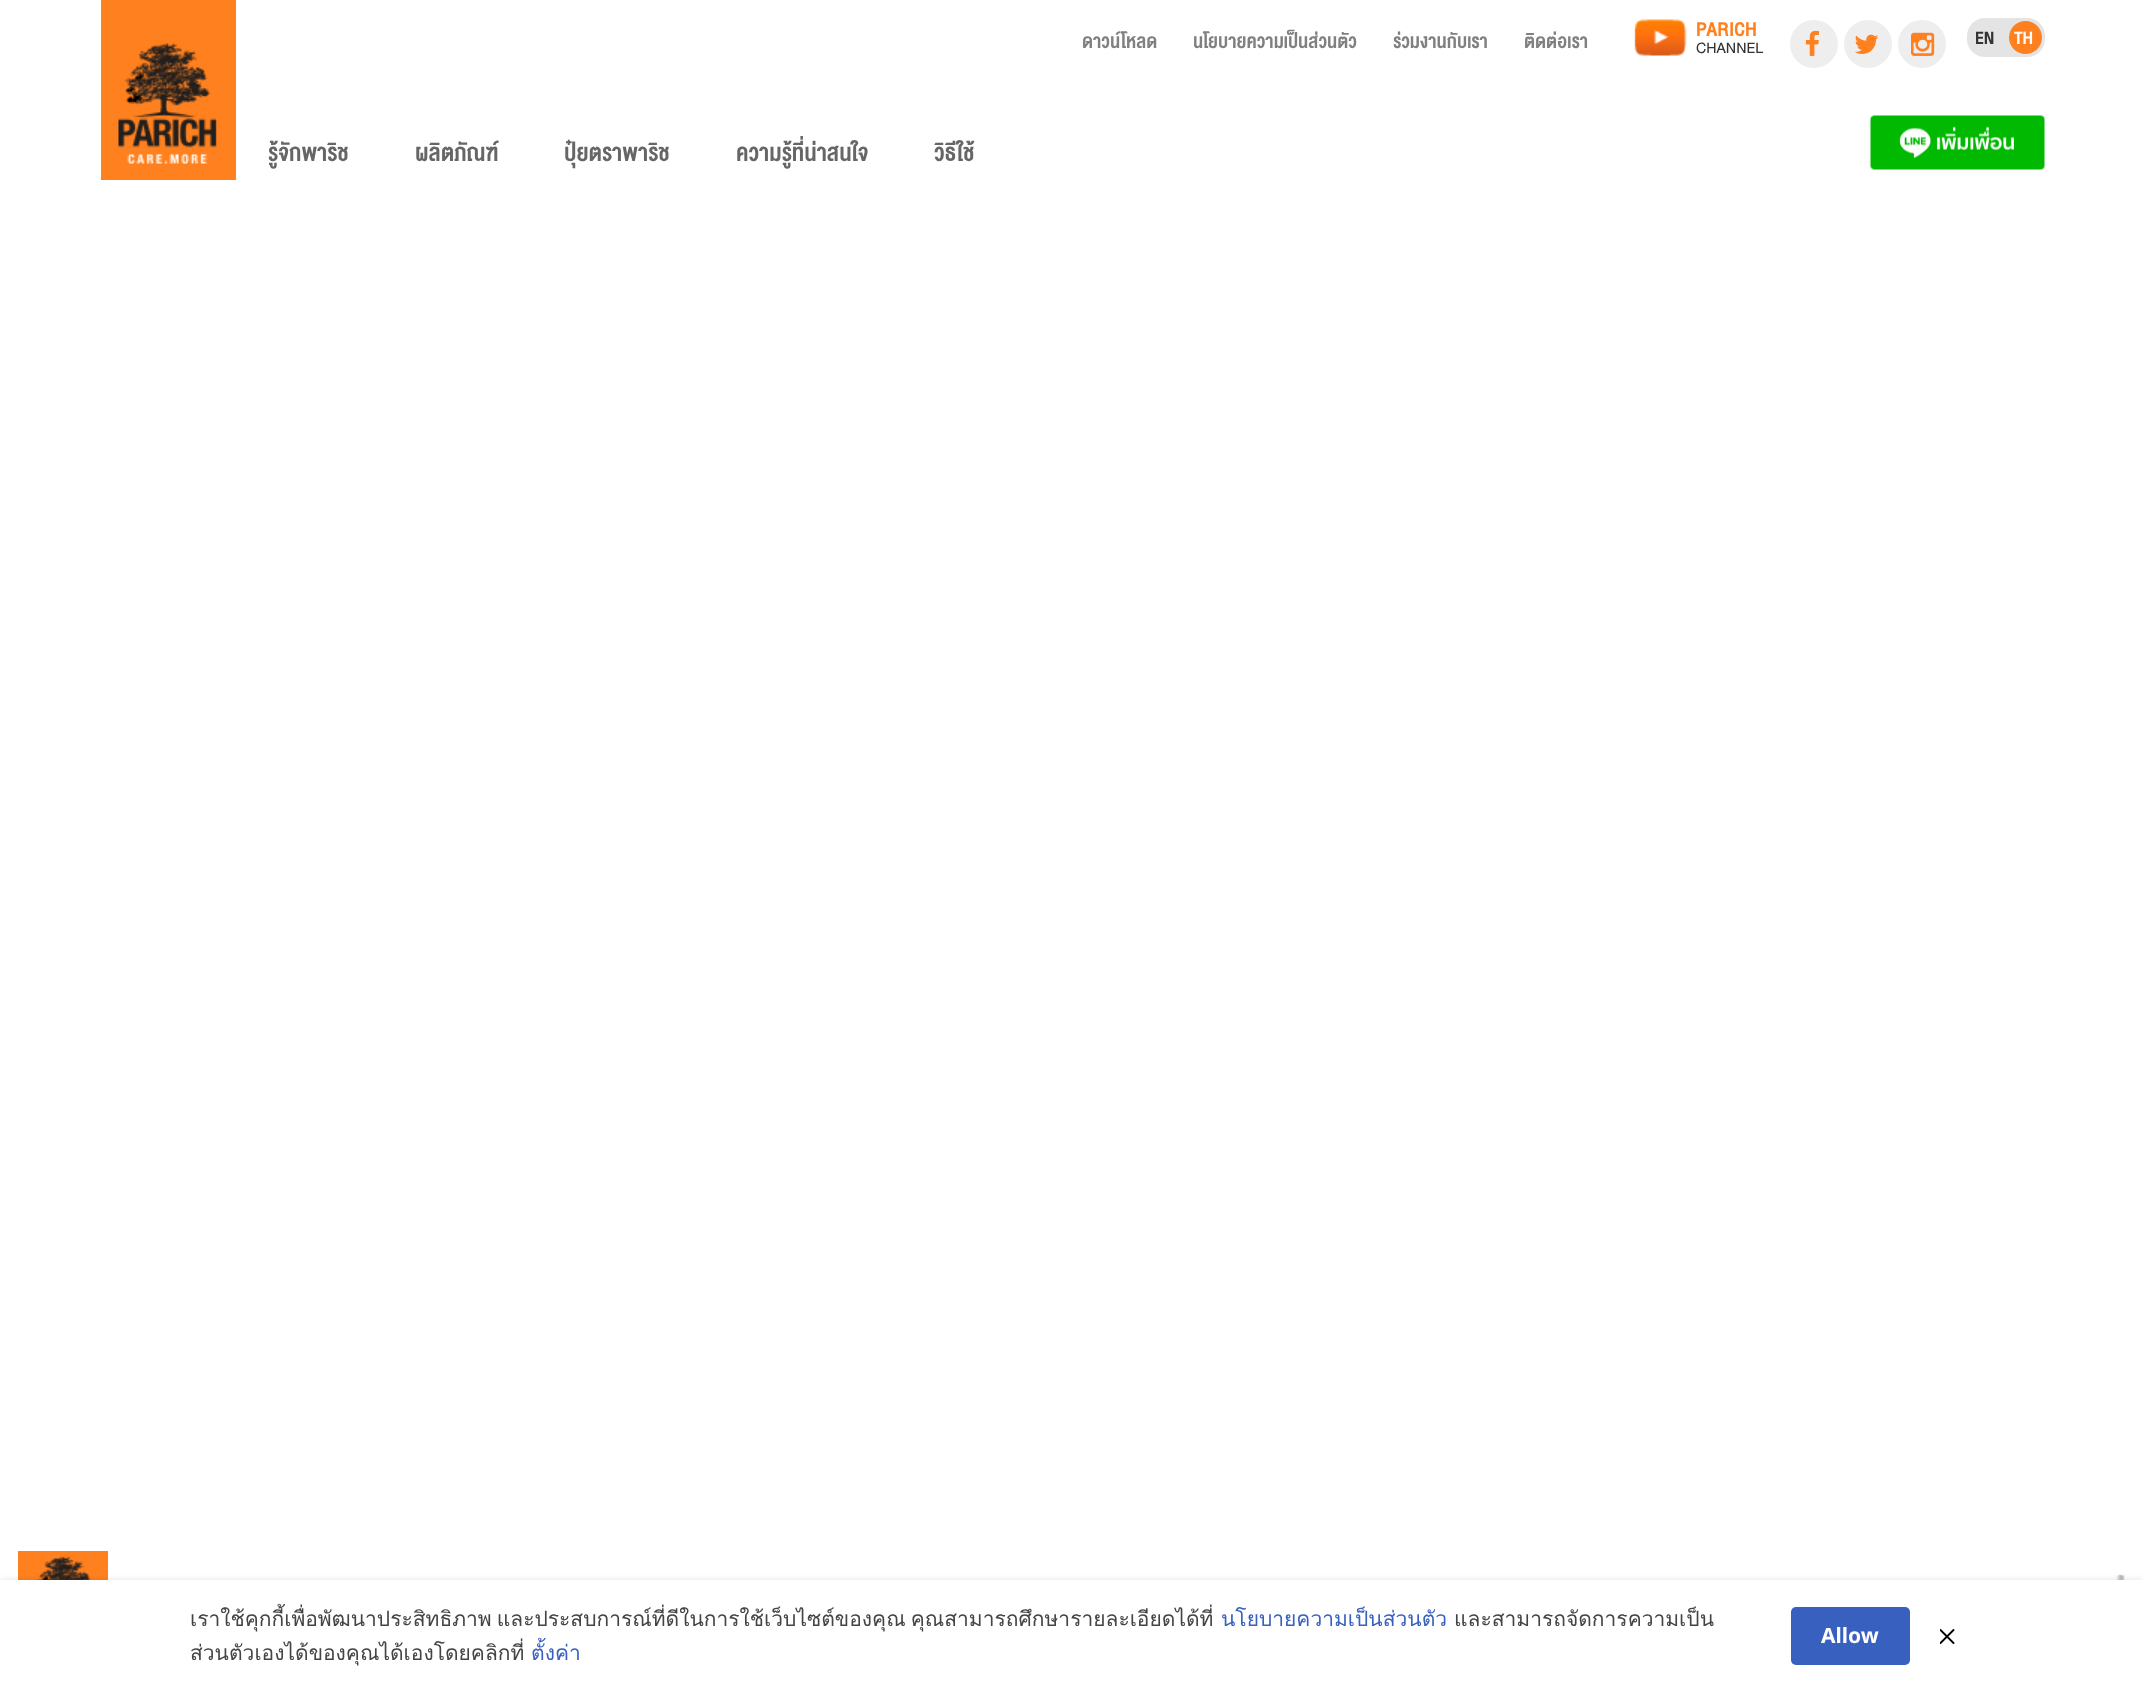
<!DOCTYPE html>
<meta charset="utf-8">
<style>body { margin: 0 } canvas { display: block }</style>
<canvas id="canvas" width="2143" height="1692"></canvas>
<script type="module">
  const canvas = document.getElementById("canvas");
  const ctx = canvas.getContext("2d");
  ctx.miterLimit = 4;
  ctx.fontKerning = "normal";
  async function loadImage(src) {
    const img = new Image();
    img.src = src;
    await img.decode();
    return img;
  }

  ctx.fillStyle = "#ffffff";
  ctx.fillRect(0, 0, 2143, 1692);
  ctx.fillStyle = "#ff801e";
  ctx.fillRect(101, 0, 135, 180);
  ctx.drawImage(await loadImage("img1.png"), 118, 43, 99, 121);
  ctx.font = "bold 27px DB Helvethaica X";
  ctx.fillStyle = "#808080";
  ctx.fillText("ดาวน์โหลด", 1082, 48);
  ctx.fillText("นโยบายความเป็นส่วนตัว", 1193, 48);
  ctx.fillText("ร่วมงานกับเรา", 1393, 48);
  ctx.fillText("ติดต่อเรา", 1524, 48);
  ctx.drawImage(await loadImage("img2.png"), 1634, 19, 53, 37);
  ctx.fillStyle = "#ff801e";
  ctx.fillText("PARICH", 1696, 36);
  ctx.font = "21px DB Helvethaica X";
  ctx.fillStyle = "#333333";
  ctx.fillText("CHANNEL", 1696, 53);
  ctx.fillStyle = "#eeeeee";
  ctx.beginPath();
  ctx.arc(1814, 44, 24, 0, Math.PI * 2);
  ctx.fill();
  ctx.drawImage(await loadImage("img3.png"), 1805, 30, 14, 26);
  ctx.beginPath();
  ctx.arc(1868, 44, 24, 0, Math.PI * 2);
  ctx.fill();
  ctx.drawImage(await loadImage("img4.png"), 1854, 34, 25, 20);
  ctx.beginPath();
  ctx.arc(1922, 44, 24, 0, Math.PI * 2);
  ctx.fill();
  ctx.drawImage(await loadImage("img5.png"), 1911, 32, 24, 24);
  ctx.fillStyle = "#e4e4e4";
  ctx.beginPath();
  ctx.roundRect(1967, 18, 78, 39, 18);
  ctx.fill();
  ctx.font = "bold 24px DB Helvethaica X";
  ctx.fillStyle = "#333333";
  ctx.fillText("EN", 1975, 44);
  ctx.fillStyle = "#ff801e";
  ctx.beginPath();
  ctx.arc(2025.5, 37.5, 16.5, 0, Math.PI * 2);
  ctx.fill();
  ctx.fillStyle = "#ffffff";
  ctx.fillText("TH", 2014, 44);
  ctx.drawImage(await loadImage("img6.png"), 1870, 115, 175, 55);
  ctx.font = "bold 33px DB Helvethaica X";
  ctx.fillStyle = "#666666";
  ctx.fillText("รู้จักพาริช", 268, 161);
  ctx.fillText("ผลิตภัณฑ์", 415, 161);
  ctx.fillText("ปุ๋ยตราพาริช", 564, 161);
  ctx.fillText("ความรู้ที่น่าสนใจ", 736, 161);
  ctx.fillText("วิธีใช้", 934, 161);
  ctx.fillStyle = "#ff801e";
  ctx.fillRect(18, 1551, 90, 29);
  ctx.drawImage(await loadImage("img7.png"), 36, 1556, 55, 24);
  ctx.drawImage(await loadImage("img8.png"), 2116, 1574, 9, 6);
  ctx.fillStyle = "rgba(0, 0, 0, 0.25)";
  ctx.filter = "blur(4px)";
  ctx.beginPath();
  ctx.rect(0, 1583, 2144, 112);
  ctx.fill();
  ctx.filter = "none";
  ctx.fillStyle = "#ffffff";
  ctx.fillRect(0, 1580, 2143, 112);
  ctx.wordSpacing = "-2px";
  ctx.font = "21px Loma";
  ctx.fillStyle = "#444444";
  ctx.fillText("เราใช้คุกกี้เพื่อพัฒนาประสิทธิภาพ และประสบการณ์ที่ดีในการใช้เว็บไซต์ของคุณ คุณสามารถศึกษารายละเอียดได้ที่", 190, 1626);
  ctx.wordSpacing = "0px";
  ctx.fillStyle = "#3860be";
  ctx.fillText("นโยบายความเป็นส่วนตัว", 1221, 1626);
  ctx.fillStyle = "#444444";
  ctx.fillText("และสามารถจัดการความเป็น", 1454, 1626);
  ctx.fillText("ส่วนตัวเองได้ของคุณได้เองโดยคลิกที่", 190, 1660);
  ctx.fillStyle = "#3860be";
  ctx.fillText("ตั้งค่า", 531, 1660);
  ctx.beginPath();
  ctx.roundRect(1791, 1607, 119, 58, 5);
  ctx.fill();
  ctx.font = "bold 21px Noto Sans";
  ctx.fillStyle = "#ffffff";
  ctx.fillText("Allow", 1821, 1643);
  ctx.drawImage(await loadImage("img9.png"), 1940, 1629, 15, 15);
</script>
